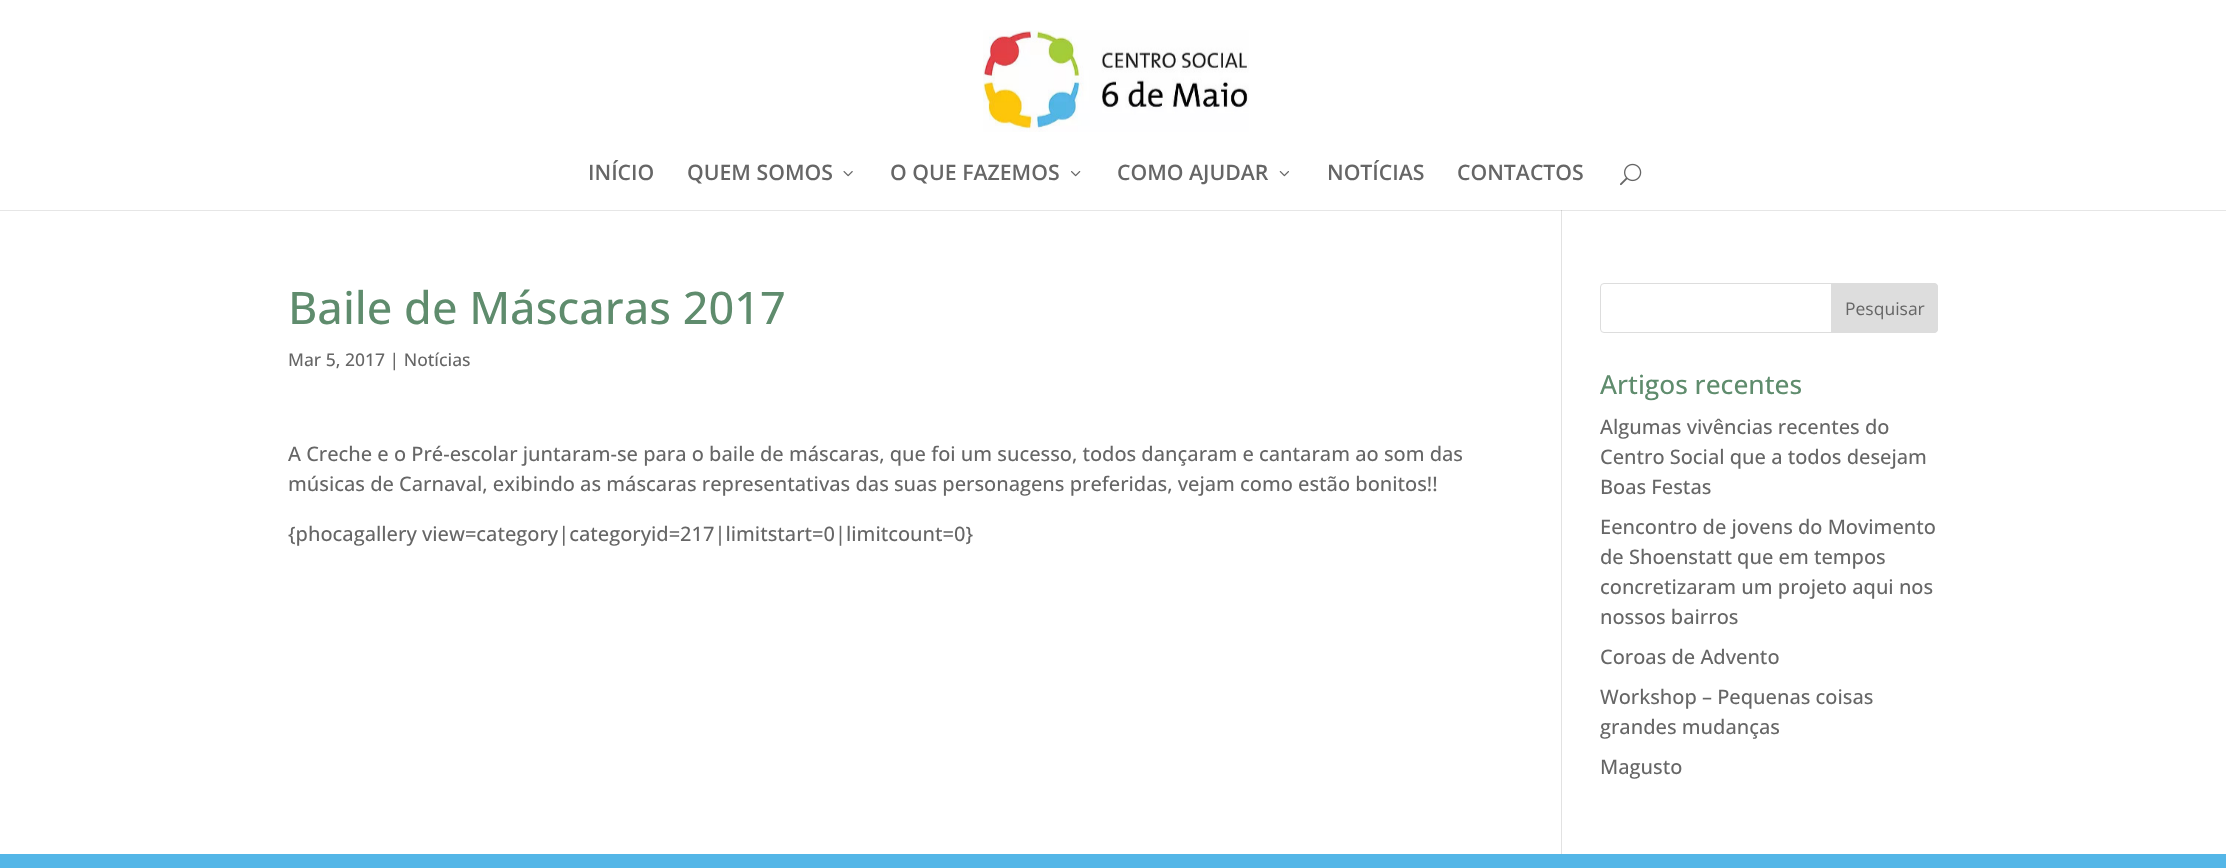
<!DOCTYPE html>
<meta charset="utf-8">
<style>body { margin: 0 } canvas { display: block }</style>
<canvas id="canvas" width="2226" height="868"></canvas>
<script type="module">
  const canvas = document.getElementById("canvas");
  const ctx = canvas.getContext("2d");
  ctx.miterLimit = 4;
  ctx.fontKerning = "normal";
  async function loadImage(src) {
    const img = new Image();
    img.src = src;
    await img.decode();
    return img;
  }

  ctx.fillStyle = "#ffffff";
  ctx.fillRect(0, 0, 2226, 868);
  ctx.fillStyle = "#e6e6e6";
  ctx.fillRect(0, 210, 2226, 1);
  ctx.drawImage(await loadImage("img1.png"), 983, 30, 266, 102);
  ctx.font = "600 21.25px Open Sans";
  ctx.fillStyle = "#666666";
  ctx.fillText("INÍCIO", 588, 180);
  ctx.fillText("QUEM SOMOS", 687, 180);
  ctx.drawImage(await loadImage("img2.png"), 843, 171, 10, 6);
  ctx.fillText("O QUE FAZEMOS", 890, 180);
  ctx.drawImage(await loadImage("img3.png"), 1071, 171, 10, 6);
  ctx.fillText("COMO AJUDAR", 1117, 180);
  ctx.drawImage(await loadImage("img4.png"), 1279, 171, 10, 6);
  ctx.fillText("NOTÍCIAS", 1327, 180);
  ctx.fillText("CONTACTOS", 1457, 180);
  ctx.drawImage(await loadImage("img5.png"), 1620, 163, 22, 23);
  ctx.fillStyle = "#e2e2e2";
  ctx.fillRect(1561, 210, 1, 644);
  ctx.fillStyle = "#cbcbcb";
  ctx.fillRect(1561, 210, 1, 1);
  ctx.font = "500 45px Open Sans";
  ctx.fillStyle = "#5f8c6d";
  ctx.fillText("Baile de Máscaras 2017", 288, 324);
  ctx.font = "500 17.5px Open Sans";
  ctx.fillStyle = "#666666";
  ctx.fillText("Mar 5, 2017 | Notícias", 288, 366);
  ctx.font = "500 20px Open Sans";
  ctx.fillText("A Creche e o Pré-escolar juntaram-se para o baile de máscaras, que foi um sucesso, todos dançaram e cantaram ao som das", 288, 461);
  ctx.fillText("músicas de Carnaval, exibindo as máscaras representativas das suas personagens preferidas, vejam como estão bonitos!!", 288, 491);
  ctx.fillText("{phocagallery view=category|categoryid=217|limitstart=0|limitcount=0}", 288, 541);
  ctx.beginPath();
  ctx.roundRect(1600.5, 283.5, 337, 49, 3.5);
  ctx.strokeStyle = "#dddddd";
  ctx.stroke();
  ctx.fillStyle = "#dddddd";
  ctx.beginPath();
  ctx.roundRect(1831.5, 283.5, 106, 49, [0, 3.5, 3.5, 0]);
  ctx.fill();
  ctx.stroke();
  ctx.font = "17.5px Open Sans";
  ctx.fillStyle = "#666666";
  ctx.fillText("Pesquisar", 1845, 315);
  ctx.font = "500 26.25px Open Sans";
  ctx.fillStyle = "#5f8c6d";
  ctx.fillText("Artigos recentes", 1600, 394);
  ctx.font = "500 20px Open Sans";
  ctx.fillStyle = "#666666";
  ctx.fillText("Algumas vivências recentes do", 1600, 434);
  ctx.fillText("Centro Social que a todos desejam", 1600, 464);
  ctx.fillText("Boas Festas", 1600, 494);
  ctx.fillText("Eencontro de jovens do Movimento", 1600, 534);
  ctx.fillText("de Shoenstatt que em tempos", 1600, 564);
  ctx.fillText("concretizaram um projeto aqui nos", 1600, 594);
  ctx.fillText("nossos bairros", 1600, 624);
  ctx.fillText("Coroas de Advento", 1600, 664);
  ctx.fillText("Workshop – Pequenas coisas", 1600, 704);
  ctx.fillText("grandes mudanças", 1600, 734);
  ctx.fillText("Magusto", 1600, 774);
  ctx.fillStyle = "#54b6e7";
  ctx.fillRect(0, 854, 2226, 14);
</script>
